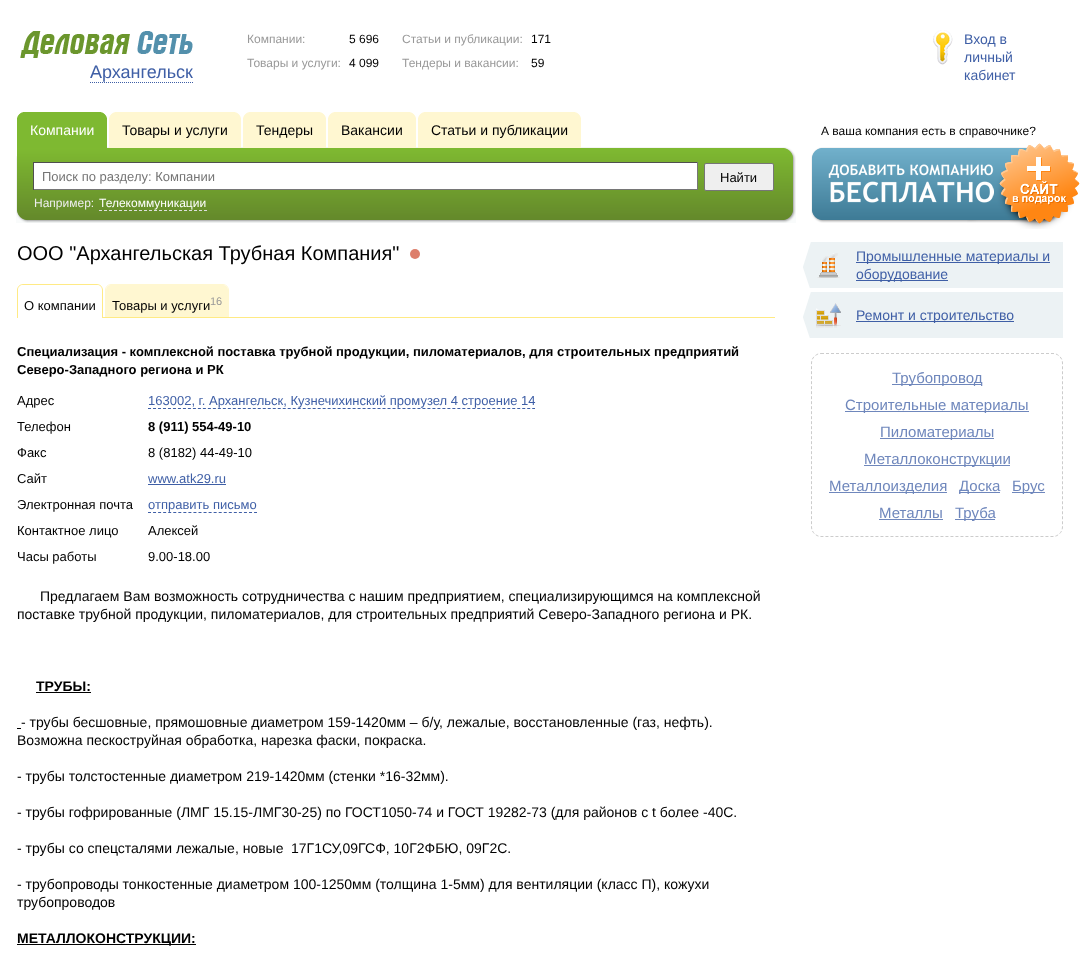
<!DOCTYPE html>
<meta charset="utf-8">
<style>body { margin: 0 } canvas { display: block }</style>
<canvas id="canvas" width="1081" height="965"></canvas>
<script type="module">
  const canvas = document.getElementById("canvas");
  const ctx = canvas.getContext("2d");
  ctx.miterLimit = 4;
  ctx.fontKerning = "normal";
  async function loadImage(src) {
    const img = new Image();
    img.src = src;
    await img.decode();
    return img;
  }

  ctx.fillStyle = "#ffffff";
  ctx.fillRect(0, 0, 1081, 965);
  ctx.drawImage(await loadImage("img1.png"), 20, 31, 173, 27);
  ctx.font = "18px Liberation Sans";
  ctx.fillStyle = "#3f5fa6";
  ctx.fillText("Архангельск", 90, 78);
  ctx.beginPath();
  ctx.moveTo(90, 82.5);
  ctx.lineTo(193, 82.5);
  ctx.strokeStyle = "#3f5fa6";
  ctx.setLineDash([1, 1]);
  ctx.stroke();
  ctx.font = "12px Liberation Sans";
  ctx.fillStyle = "#999999";
  ctx.fillText("Компании:", 247, 43);
  ctx.fillStyle = "#000000";
  ctx.fillText("5 696", 349, 43);
  ctx.fillStyle = "#999999";
  ctx.fillText("Товары и услуги:", 247, 67);
  ctx.fillStyle = "#000000";
  ctx.fillText("4 099", 349, 67);
  ctx.fillStyle = "#999999";
  ctx.fillText("Статьи и публикации:", 402, 43);
  ctx.fillStyle = "#000000";
  ctx.fillText("171", 531, 43);
  ctx.fillStyle = "#999999";
  ctx.fillText("Тендеры и вакансии:", 402, 67);
  ctx.fillStyle = "#000000";
  ctx.fillText("59", 531, 67);
  ctx.drawImage(await loadImage("img2.png"), 933, 30, 20, 35);
  ctx.font = "14px Liberation Sans";
  ctx.fillStyle = "#3f5fa6";
  ctx.fillText("Вход в", 964, 44);
  ctx.fillText("личный", 964, 62);
  ctx.fillText("кабинет", 964, 80);
  ctx.drawImage(await loadImage("img7.png"), 17, 147, 767, 76);
  ctx.fillStyle = "#7eb931";
  ctx.fillRect(17, 112, 90, 36);
  ctx.drawImage(await loadImage("img3.png"), 101, 112, 6, 6);
  ctx.drawImage(await loadImage("img4.png"), 17, 112, 6, 6);
  ctx.fillStyle = "#ffffff";
  ctx.fillText("Компании", 30, 135);
  ctx.fillStyle = "#fff7d1";
  ctx.fillRect(109, 112, 132, 36);
  ctx.drawImage(await loadImage("img5.png"), 235, 112, 6, 6);
  ctx.drawImage(await loadImage("img6.png"), 109, 112, 6, 6);
  ctx.fillStyle = "#000000";
  ctx.fillText("Товары и услуги", 122, 135);
  ctx.fillStyle = "#fff7d1";
  ctx.fillRect(243, 112, 83, 36);
  ctx.drawImage(await loadImage("img5.png"), 320, 112, 6, 6);
  ctx.drawImage(await loadImage("img6.png"), 243, 112, 6, 6);
  ctx.fillStyle = "#000000";
  ctx.fillText("Тендеры", 256, 135);
  ctx.fillStyle = "#fff7d1";
  ctx.fillRect(328, 112, 88, 36);
  ctx.drawImage(await loadImage("img5.png"), 410, 112, 6, 6);
  ctx.drawImage(await loadImage("img6.png"), 328, 112, 6, 6);
  ctx.fillStyle = "#000000";
  ctx.fillText("Вакансии", 341, 135);
  ctx.fillStyle = "#fff7d1";
  ctx.fillRect(418, 112, 163, 36);
  ctx.drawImage(await loadImage("img5.png"), 575, 112, 6, 6);
  ctx.drawImage(await loadImage("img6.png"), 418, 112, 6, 6);
  ctx.fillStyle = "#000000";
  ctx.fillText("Статьи и публикации", 431, 135);
  ctx.drawImage(await loadImage("img8.png"), 16, 156, 11, 67);
  ctx.fillStyle = "#ffffff";
  ctx.fillRect(34, 163, 663, 26);
  ctx.fillStyle = "#4f4f4f";
  ctx.fillRect(33, 162, 665, 1);
  ctx.fillStyle = "#767676";
  ctx.fillRect(697, 162, 1, 28);
  ctx.fillRect(33, 189, 665, 1);
  ctx.fillStyle = "#4f4f4f";
  ctx.fillRect(33, 162, 1, 28);
  ctx.font = "13px Liberation Sans";
  ctx.fillStyle = "#757575";
  ctx.fillText("Поиск по разделу: Компании", 42, 181);
  ctx.fillStyle = "#efefef";
  ctx.beginPath();
  ctx.roundRect(704.5, 163.5, 69, 27, 1.5);
  ctx.fill();
  ctx.strokeStyle = "#767676";
  ctx.setLineDash([]);
  ctx.stroke();
  ctx.fillStyle = "#000000";
  ctx.fillText("Найти", 720, 182);
  ctx.drawImage(await loadImage("img9.png"), 784, 147, 12, 76);
  ctx.font = "12px Liberation Sans";
  ctx.fillStyle = "#eeeeee";
  ctx.fillText("Например:", 34, 207);
  ctx.fillStyle = "#ffffff";
  ctx.fillText("Телекоммуникации", 99, 207);
  ctx.beginPath();
  ctx.moveTo(99, 210.5);
  ctx.lineTo(207, 210.5);
  ctx.strokeStyle = "#dddddd";
  ctx.setLineDash([3, 2]);
  ctx.stroke();
  ctx.fillStyle = "#000000";
  ctx.fillText("А ваша компания есть в справочнике?", 821, 135);
  ctx.drawImage(await loadImage("img10.png"), 811, 143, 269, 86);
  ctx.font = "20px Liberation Sans";
  ctx.fillText("ООО \"Архангельская Трубная Компания\"", 17, 260);
  ctx.fillStyle = "#dd7e6b";
  ctx.beginPath();
  ctx.arc(415, 254, 5, 0, Math.PI * 2);
  ctx.fill();
  ctx.fillStyle = "#ffea84";
  ctx.fillRect(103, 317, 672, 1);
  ctx.fillStyle = "#ffea85";
  ctx.beginPath();
  ctx.moveTo(23, 284);
  ctx.lineTo(97, 284);
  ctx.bezierCurveTo(100, 284, 103, 287, 103, 290);
  ctx.lineTo(103, 318);
  ctx.lineTo(17, 318);
  ctx.lineTo(17, 290);
  ctx.bezierCurveTo(17, 287, 20, 284, 23, 284);
  ctx.closePath();
  ctx.moveTo(23, 285);
  ctx.lineTo(97, 285);
  ctx.bezierCurveTo(100, 285, 102, 287, 102, 290);
  ctx.lineTo(102, 318);
  ctx.lineTo(18, 318);
  ctx.lineTo(18, 290);
  ctx.bezierCurveTo(18, 287, 20, 285, 23, 285);
  ctx.closePath();
  ctx.fill("evenodd");
  ctx.font = "13px Liberation Sans";
  ctx.fillStyle = "#000000";
  ctx.fillText("О компании", 24, 310);
  ctx.fillStyle = "#fff7d1";
  ctx.beginPath();
  ctx.roundRect(106, 285, 122, 32, [5, 5, 0, 0]);
  ctx.fill();
  ctx.beginPath();
  ctx.moveTo(111, 284);
  ctx.lineTo(223, 284);
  ctx.bezierCurveTo(226, 284, 229, 287, 229, 290);
  ctx.lineTo(229, 317);
  ctx.lineTo(105, 317);
  ctx.lineTo(105, 290);
  ctx.bezierCurveTo(105, 287, 108, 284, 111, 284);
  ctx.closePath();
  ctx.moveTo(111, 285);
  ctx.lineTo(223, 285);
  ctx.bezierCurveTo(226, 285, 228, 287, 228, 290);
  ctx.lineTo(228, 317);
  ctx.lineTo(106, 317);
  ctx.lineTo(106, 290);
  ctx.bezierCurveTo(106, 287, 108, 285, 111, 285);
  ctx.closePath();
  ctx.fill("evenodd");
  ctx.fillStyle = "#000000";
  ctx.fillText("Товары и услуги", 112, 310);
  ctx.font = "11px Liberation Sans";
  ctx.fillStyle = "#999999";
  ctx.fillText("16", 210, 305);
  ctx.font = "bold 13px Liberation Sans";
  ctx.fillStyle = "#000000";
  ctx.fillText("Специализация - комплексной поставка трубной продукции, пиломатериалов, для строительных предприятий", 17, 356);
  ctx.fillText("Северо-Западного региона и РК", 17, 374);
  ctx.font = "13px Liberation Sans";
  ctx.fillText("Адрес", 17, 405);
  ctx.fillStyle = "#3f5fa6";
  ctx.fillText("163002, г. Архангельск, Кузнечихинский промузел 4 строение 14", 148, 405);
  ctx.beginPath();
  ctx.moveTo(148, 408.5);
  ctx.lineTo(535, 408.5);
  ctx.strokeStyle = "#3f5fa6";
  ctx.setLineDash([3, 1.99]);
  ctx.stroke();
  ctx.fillStyle = "#000000";
  ctx.fillText("Телефон", 17, 431);
  ctx.font = "bold 13px Liberation Sans";
  ctx.fillText("8 (911) 554-49-10", 148, 431);
  ctx.font = "13px Liberation Sans";
  ctx.fillText("Факс", 17, 457);
  ctx.fillText("8 (8182) 44-49-10", 148, 457);
  ctx.fillText("Сайт", 17, 483);
  ctx.fillStyle = "#3f5fa6";
  ctx.fillText("www.atk29.ru", 148, 483);
  ctx.fillRect(148, 484, 78, 1);
  ctx.fillStyle = "#000000";
  ctx.fillText("Электронная почта", 17, 509);
  ctx.fillStyle = "#3f5fa6";
  ctx.fillText("отправить письмо", 148, 509);
  ctx.beginPath();
  ctx.moveTo(148, 512.5);
  ctx.lineTo(257, 512.5);
  ctx.setLineDash([3, 2.05]);
  ctx.stroke();
  ctx.fillStyle = "#000000";
  ctx.fillText("Контактное лицо", 17, 535);
  ctx.fillText("Алексей", 148, 535);
  ctx.fillText("Часы работы", 17, 561);
  ctx.fillText("9.00-18.00", 148, 561);
  ctx.font = "14px Liberation Sans";
  ctx.fillText("Предлагаем Вам возможность сотрудничества с нашим предприятием, специализирующимся на комплексной", 40, 601);
  ctx.fillText("поставке трубной продукции, пиломатериалов, для строительных предприятий Северо-Западного региона и РК.", 17, 619);
  ctx.font = "bold 14px Liberation Sans";
  ctx.fillText("ТРУБЫ:", 36, 691);
  ctx.fillRect(36, 692, 55, 1);
  ctx.fillRect(17, 728, 4, 1);
  ctx.font = "14px Liberation Sans";
  ctx.fillText("- трубы бесшовные, прямошовные диаметром 159-1420мм – б/у, лежалые, восстановленные (газ, нефть).", 21, 727);
  ctx.fillText("Возможна пескоструйная обработка, нарезка фаски, покраска.", 17, 745);
  ctx.fillText("- трубы толстостенные диаметром 219-1420мм (стенки *16-32мм).", 17, 781);
  ctx.fillText("- трубы гофрированные (ЛМГ 15.15-ЛМГ30-25) по ГОСТ1050-74 и ГОСТ 19282-73 (для районов с t более -40С.", 17, 817);
  ctx.fillText("- трубы со спецсталями лежалые, новые", 17, 853);
  ctx.fillText("17Г1СУ,09ГСФ, 10Г2ФБЮ, 09Г2С.", 291, 853);
  ctx.fillText("- трубопроводы тонкостенные диаметром 100-1250мм (толщина 1-5мм) для вентиляции (класс П), кожухи", 17, 889);
  ctx.fillText("трубопроводов", 17, 907);
  ctx.fillRect(17, 944, 179, 1);
  ctx.font = "bold 14px Liberation Sans";
  ctx.fillText("МЕТАЛЛОКОНСТРУКЦИИ:", 17, 943);
  ctx.fillStyle = "#ecf2f4";
  ctx.fillRect(811, 242, 252, 46);
  ctx.drawImage(await loadImage("img11.png"), 803, 242, 8, 46);
  ctx.drawImage(await loadImage("img12.png"), 817, 253, 23, 25);
  ctx.fillStyle = "#3f5fa6";
  ctx.fillRect(856, 262, 194, 1);
  ctx.font = "14px Liberation Sans";
  ctx.fillText("Промышленные материалы и", 856, 261);
  ctx.fillRect(856, 280, 92, 1);
  ctx.fillText("оборудование", 856, 279);
  ctx.fillStyle = "#ecf2f4";
  ctx.fillRect(811, 292, 252, 46);
  ctx.drawImage(await loadImage("img11.png"), 803, 292, 8, 46);
  ctx.drawImage(await loadImage("img13.png"), 816, 303, 25, 25);
  ctx.fillStyle = "#3f5fa6";
  ctx.fillRect(856, 321, 158, 1);
  ctx.fillText("Ремонт и строительство", 856, 320);
  ctx.beginPath();
  ctx.moveTo(821, 353.5);
  ctx.lineTo(1053, 353.5);
  ctx.bezierCurveTo(1058, 353.5, 1062.5, 358, 1062.5, 363);
  ctx.lineTo(1062.5, 527);
  ctx.bezierCurveTo(1062.5, 532, 1058, 536.5, 1053, 536.5);
  ctx.lineTo(821, 536.5);
  ctx.bezierCurveTo(816, 536.5, 811.5, 532, 811.5, 527);
  ctx.lineTo(811.5, 363);
  ctx.bezierCurveTo(811.5, 358, 816, 353.5, 821, 353.5);
  ctx.closePath();
  ctx.strokeStyle = "#cccccc";
  ctx.setLineDash([3, 2]);
  ctx.stroke();
  ctx.fillStyle = "#6f87bc";
  ctx.fillRect(892, 384, 90, 1);
  ctx.font = "15px Liberation Sans";
  ctx.fillText("Трубопровод", 892, 383);
  ctx.fillRect(845, 411, 184, 1);
  ctx.fillText("Строительные материалы", 845, 410);
  ctx.fillRect(880, 438, 114, 1);
  ctx.fillText("Пиломатериалы", 880, 437);
  ctx.fillRect(864, 465, 146, 1);
  ctx.fillText("Металлоконструкции", 864, 464);
  ctx.fillRect(829, 492, 118, 1);
  ctx.fillText("Металлоизделия", 829, 491);
  ctx.fillRect(959, 492, 41, 1);
  ctx.fillText("Доска", 959, 491);
  ctx.fillRect(1012, 492, 33, 1);
  ctx.fillText("Брус", 1012, 491);
  ctx.fillText("Металлы", 879, 518);
  ctx.fillRect(879, 519, 64, 1);
  ctx.fillRect(955, 519, 40, 1);
  ctx.fillText("Труба", 955, 518);
</script>
